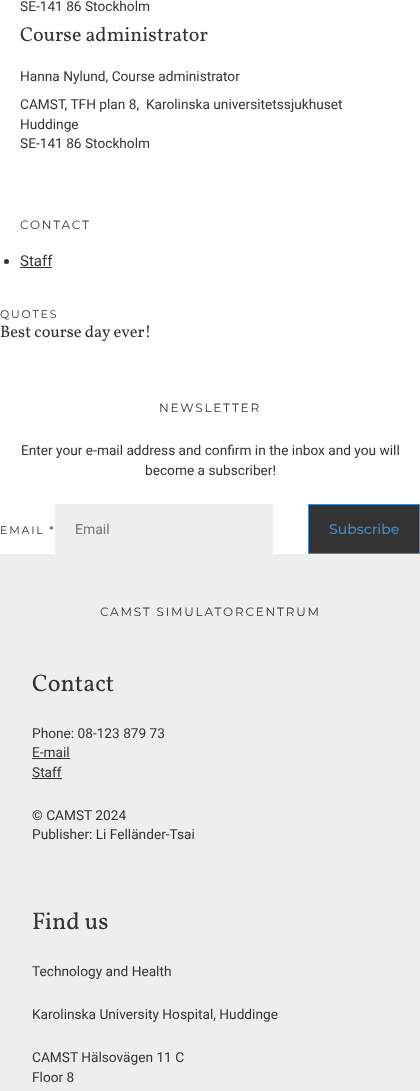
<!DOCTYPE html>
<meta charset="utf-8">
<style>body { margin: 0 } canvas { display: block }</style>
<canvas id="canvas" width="420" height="1091"></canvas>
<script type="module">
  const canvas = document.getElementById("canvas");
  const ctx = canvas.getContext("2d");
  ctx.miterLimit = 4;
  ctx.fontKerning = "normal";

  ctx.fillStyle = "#ffffff";
  ctx.fillRect(0, 0, 420, 1091);
  ctx.font = "13.7px Roboto";
  ctx.fillStyle = "#333333";
  ctx.fillText("SE-141 86 Stockholm", 20, 11);
  ctx.font = "20px Vollkorn";
  ctx.fillText("Course administrator", 20, 41);
  ctx.font = "13.7px Roboto";
  ctx.fillText("Hanna Nylund, Course administrator", 20, 81);
  ctx.fillText("CAMST, TFH plan 8,  Karolinska universitetssjukhuset", 20, 109);
  ctx.fillText("Huddinge", 20, 129);
  ctx.fillText("SE-141 86 Stockholm", 20, 148);
  ctx.letterSpacing = "1.8px";
  ctx.font = "12px Montserrat";
  ctx.fillText("CONTACT", 20, 229);
  ctx.beginPath();
  ctx.arc(6.5, 261.5, 2.5, 0, Math.PI * 2);
  ctx.fill();
  ctx.letterSpacing = "0px";
  ctx.font = "15px Roboto";
  ctx.fillText("Staff", 20, 266);
  ctx.fillRect(20, 267, 32, 1);
  ctx.letterSpacing = "1.8px";
  ctx.font = "11px Montserrat";
  ctx.fillText("QUOTES", 0, 318);
  ctx.letterSpacing = "0px";
  ctx.font = "16.5px Vollkorn";
  ctx.fillText("Best course day ever!", 0, 337);
  ctx.letterSpacing = "1.8px";
  ctx.font = "12px Montserrat";
  ctx.fillText("NEWSLETTER", 159, 412);
  ctx.letterSpacing = "0px";
  ctx.font = "13.7px Roboto";
  ctx.fillText("Enter your e-mail address and confirm in the inbox and you will", 21, 455);
  ctx.fillText("become a subscriber!", 145, 475);
  ctx.letterSpacing = "1.8px";
  ctx.font = "11px Montserrat";
  ctx.fillText("EMAIL *", 0, 534);
  ctx.fillStyle = "#eeeeee";
  ctx.fillRect(55, 504, 218, 50);
  ctx.letterSpacing = "0px";
  ctx.font = "14px Roboto";
  ctx.fillStyle = "#757575";
  ctx.fillText("Email", 75, 534);
  ctx.fillStyle = "#333333";
  ctx.beginPath();
  ctx.rect(308.5, 504.5, 111, 49);
  ctx.fill();
  ctx.strokeStyle = "#428bca";
  ctx.stroke();
  ctx.font = "500 14px Montserrat";
  ctx.fillStyle = "#428bca";
  ctx.fillText("Subscribe", 329, 534);
  ctx.fillStyle = "#eeeeee";
  ctx.fillRect(0, 554, 420, 537);
  ctx.letterSpacing = "1.8px";
  ctx.font = "12px Montserrat";
  ctx.fillStyle = "#333333";
  ctx.fillText("CAMST SIMULATORCENTRUM", 100, 616);
  ctx.letterSpacing = "0px";
  ctx.font = "24px Vollkorn";
  ctx.fillText("Contact", 32, 691);
  ctx.font = "13.7px Roboto";
  ctx.fillText("Phone: 08-123 879 73", 32, 738);
  ctx.fillText("E-mail", 32, 757);
  ctx.fillRect(32, 758, 38, 1);
  ctx.fillText("Staff", 32, 777);
  ctx.fillRect(32, 778, 30, 1);
  ctx.fillText("© CAMST 2024", 32, 820);
  ctx.fillText("Publisher: Li Felländer-Tsai", 32, 839);
  ctx.font = "24px Vollkorn";
  ctx.fillText("Find us", 32, 929);
  ctx.font = "13.7px Roboto";
  ctx.fillText("Technology and Health", 32, 976);
  ctx.fillText("Karolinska University Hospital, Huddinge", 32, 1019);
  ctx.fillText("CAMST Hälsovägen 11 C", 32, 1062);
  ctx.fillText("Floor 8", 32, 1082);
</script>
